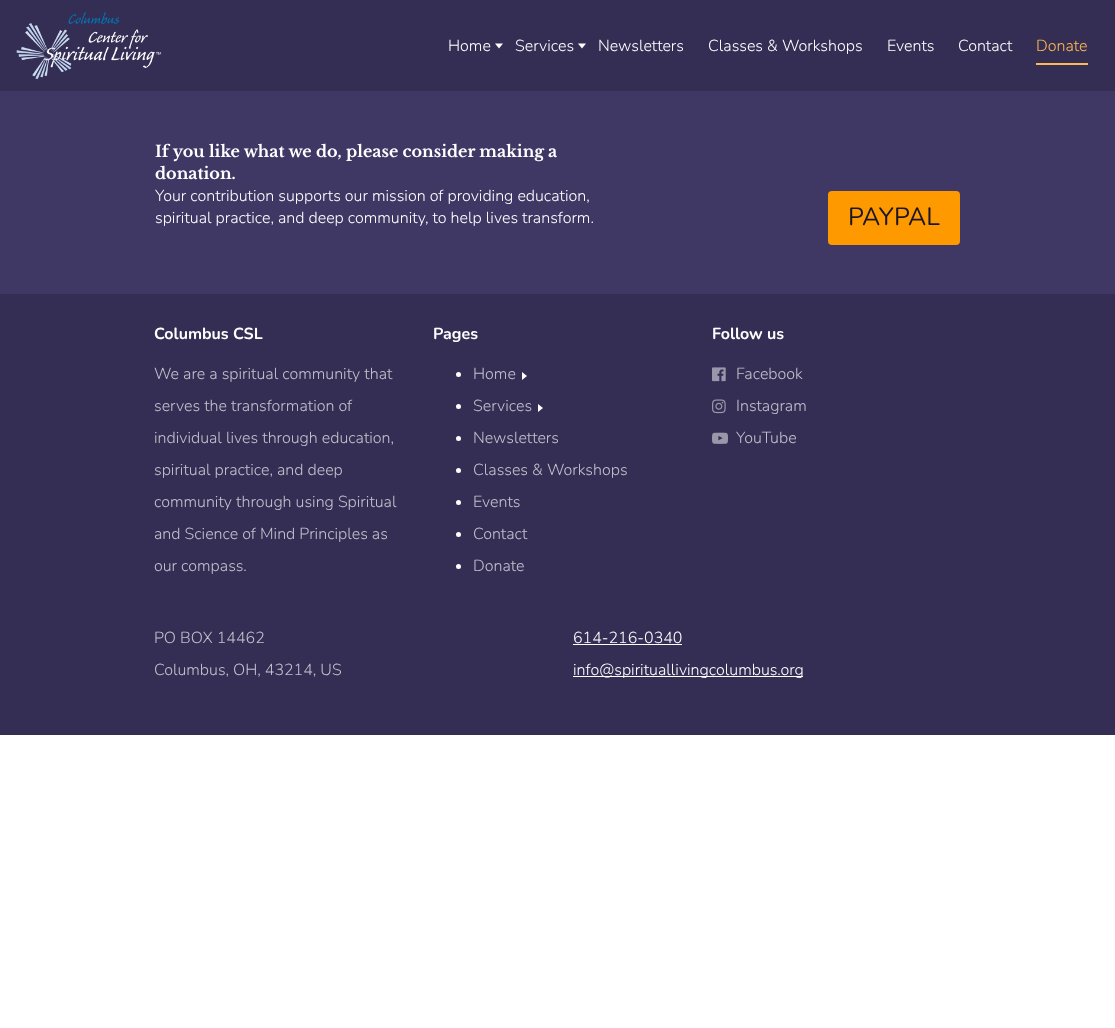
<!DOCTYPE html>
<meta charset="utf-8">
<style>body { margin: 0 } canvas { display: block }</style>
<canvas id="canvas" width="1115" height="1028"></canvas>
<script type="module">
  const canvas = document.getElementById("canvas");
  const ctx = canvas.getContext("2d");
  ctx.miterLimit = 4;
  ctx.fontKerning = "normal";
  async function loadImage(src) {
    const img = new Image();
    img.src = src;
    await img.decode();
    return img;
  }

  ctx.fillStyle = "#ffffff";
  ctx.fillRect(0, 0, 1115, 1028);
  ctx.fillStyle = "#352e54";
  ctx.fillRect(0, 0, 1115, 91);
  ctx.drawImage(await loadImage("img1.png"), 16, 12, 146, 68);
  ctx.font = "300 16px Nunito";
  ctx.fillStyle = "#ffffff";
  ctx.fillText("Home", 448, 51);
  ctx.beginPath();
  ctx.moveTo(495, 43.5);
  ctx.lineTo(503, 43.5);
  ctx.lineTo(499, 48.5);
  ctx.closePath();
  ctx.fill();
  ctx.fillText("Services", 515, 51);
  ctx.beginPath();
  ctx.moveTo(578, 43.5);
  ctx.lineTo(586, 43.5);
  ctx.lineTo(582, 48.5);
  ctx.closePath();
  ctx.fill();
  ctx.fillText("Newsletters", 598, 51);
  ctx.fillText("Classes & Workshops", 708, 51);
  ctx.fillText("Events", 887, 51);
  ctx.fillText("Contact", 958, 51);
  ctx.fillStyle = "#ffb951";
  ctx.fillText("Donate", 1036, 51);
  ctx.fillRect(1036, 63, 52, 2);
  ctx.fillStyle = "#3f3764";
  ctx.fillRect(0, 91, 1115, 203);
  ctx.font = "bold 16px Libre Baskerville";
  ctx.fillStyle = "#ffffff";
  ctx.fillText("If you like what we do, please consider making a", 155, 157);
  ctx.fillText("donation.", 155, 179);
  ctx.font = "300 16px Nunito";
  ctx.fillText("Your contribution supports our mission of providing education,", 155, 201);
  ctx.fillText("spiritual practice, and deep community, to help lives transform.", 155, 223);
  ctx.fillStyle = "#ff9900";
  ctx.beginPath();
  ctx.roundRect(828, 191, 132, 54, 4);
  ctx.fill();
  ctx.font = "25px Nunito";
  ctx.fillStyle = "#191629";
  ctx.fillText("PAYPAL", 848, 225);
  ctx.fillStyle = "#352e54";
  ctx.fillRect(0, 294, 1115, 441);
  ctx.font = "bold 16px Nunito";
  ctx.fillStyle = "#ffffff";
  ctx.fillText("Columbus CSL", 154, 339);
  ctx.font = "300 16px Nunito";
  ctx.fillStyle = "#c2c0cc";
  ctx.fillText("We are a spiritual community that", 154, 379);
  ctx.fillText("serves the transformation of", 154, 411);
  ctx.fillText("individual lives through education,", 154, 443);
  ctx.fillText("spiritual practice, and deep", 154, 475);
  ctx.fillText("community through using Spiritual", 154, 507);
  ctx.fillText("and Science of Mind Principles as", 154, 539);
  ctx.fillText("our compass.", 154, 571);
  ctx.font = "bold 16px Nunito";
  ctx.fillStyle = "#ffffff";
  ctx.fillText("Pages", 433, 339);
  ctx.beginPath();
  ctx.arc(458.5, 374.5, 2.5, 0, Math.PI * 2);
  ctx.fill();
  ctx.font = "300 16px Nunito";
  ctx.fillStyle = "#c2c0cc";
  ctx.fillText("Home", 473, 379);
  ctx.fillStyle = "#ffffff";
  ctx.beginPath();
  ctx.moveTo(522, 380);
  ctx.lineTo(522, 372);
  ctx.lineTo(527, 376);
  ctx.closePath();
  ctx.fill();
  ctx.beginPath();
  ctx.arc(458.5, 406.5, 2.5, 0, Math.PI * 2);
  ctx.fill();
  ctx.fillStyle = "#c2c0cc";
  ctx.fillText("Services", 473, 411);
  ctx.fillStyle = "#ffffff";
  ctx.beginPath();
  ctx.moveTo(538, 412);
  ctx.lineTo(538, 404);
  ctx.lineTo(543, 408);
  ctx.closePath();
  ctx.fill();
  ctx.beginPath();
  ctx.arc(458.5, 438.5, 2.5, 0, Math.PI * 2);
  ctx.fill();
  ctx.fillStyle = "#c2c0cc";
  ctx.fillText("Newsletters", 473, 443);
  ctx.fillStyle = "#ffffff";
  ctx.beginPath();
  ctx.arc(458.5, 470.5, 2.5, 0, Math.PI * 2);
  ctx.fill();
  ctx.fillStyle = "#c2c0cc";
  ctx.fillText("Classes & Workshops", 473, 475);
  ctx.fillStyle = "#ffffff";
  ctx.beginPath();
  ctx.arc(458.5, 502.5, 2.5, 0, Math.PI * 2);
  ctx.fill();
  ctx.fillStyle = "#c2c0cc";
  ctx.fillText("Events", 473, 507);
  ctx.fillStyle = "#ffffff";
  ctx.beginPath();
  ctx.arc(458.5, 534.5, 2.5, 0, Math.PI * 2);
  ctx.fill();
  ctx.fillStyle = "#c2c0cc";
  ctx.fillText("Contact", 473, 539);
  ctx.fillStyle = "#ffffff";
  ctx.beginPath();
  ctx.arc(458.5, 566.5, 2.5, 0, Math.PI * 2);
  ctx.fill();
  ctx.fillStyle = "#c2c0cc";
  ctx.fillText("Donate", 473, 571);
  ctx.font = "bold 16px Nunito";
  ctx.fillStyle = "#ffffff";
  ctx.fillText("Follow us", 712, 339);
  ctx.drawImage(await loadImage("img2.png"), 712, 367, 14, 15);
  ctx.font = "300 16px Nunito";
  ctx.fillStyle = "#c2c0cc";
  ctx.fillText("Facebook", 736, 379);
  ctx.drawImage(await loadImage("img3.png"), 712, 399, 14, 15);
  ctx.fillText("Instagram", 736, 411);
  ctx.drawImage(await loadImage("img4.png"), 712, 432, 16, 12);
  ctx.fillText("YouTube", 736, 443);
  ctx.fillText("PO BOX 14462", 154, 643);
  ctx.fillText("Columbus, OH, 43214, US", 154, 675);
  ctx.fillStyle = "#ffffff";
  ctx.fillText("614-216-0340", 573, 643);
  ctx.fillRect(573, 644, 109, 1);
  ctx.fillRect(573, 676, 230, 1);
  ctx.fillText("info@spirituallivingcolumbus.org", 573, 675);
</script>
